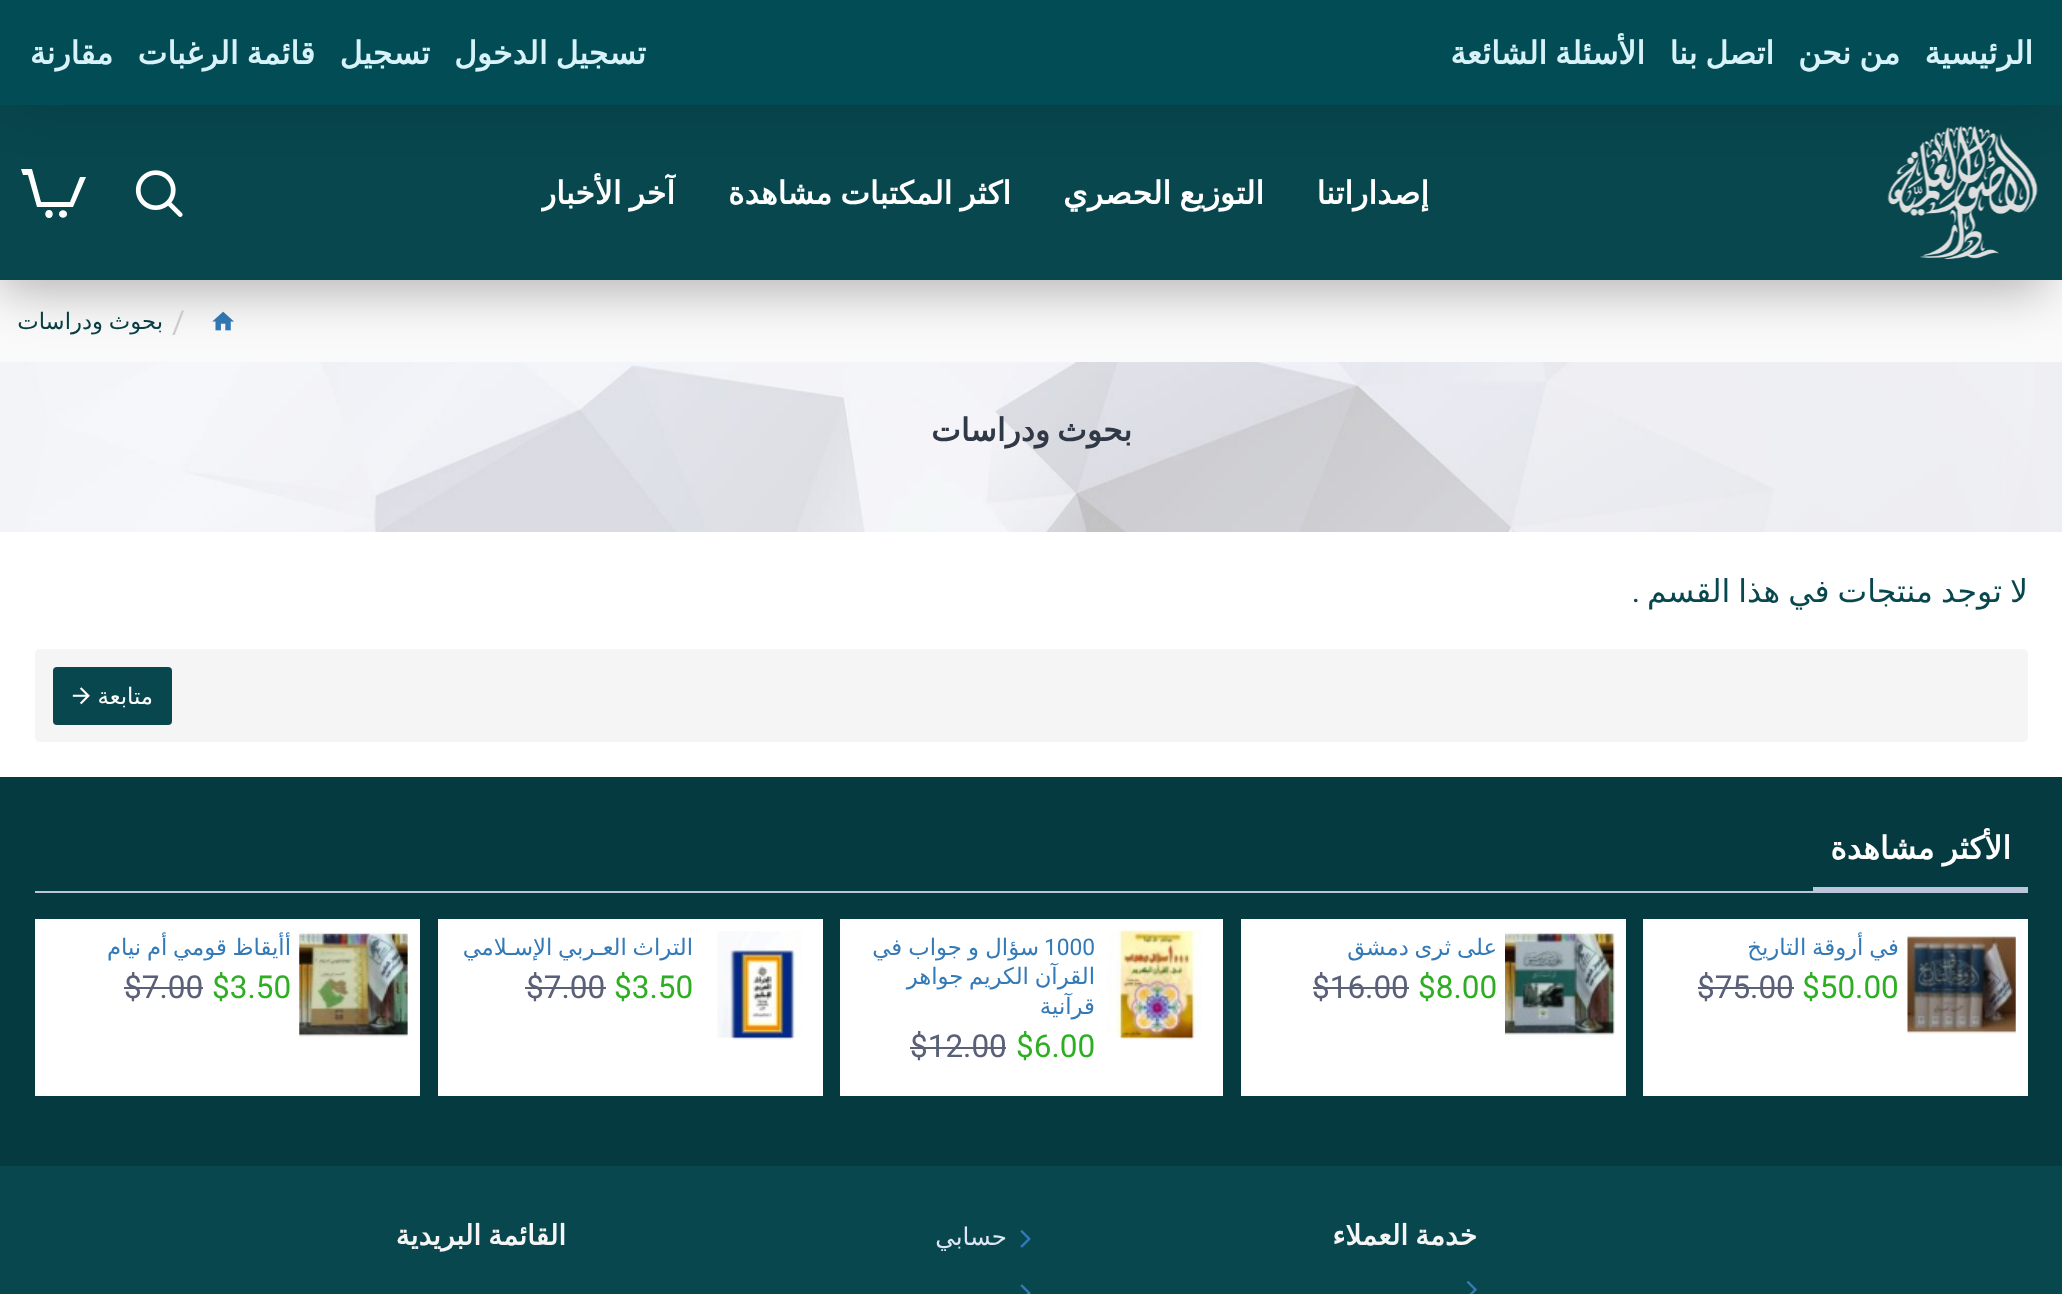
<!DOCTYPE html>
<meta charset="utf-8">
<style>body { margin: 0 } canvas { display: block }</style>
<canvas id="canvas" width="2062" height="1294"></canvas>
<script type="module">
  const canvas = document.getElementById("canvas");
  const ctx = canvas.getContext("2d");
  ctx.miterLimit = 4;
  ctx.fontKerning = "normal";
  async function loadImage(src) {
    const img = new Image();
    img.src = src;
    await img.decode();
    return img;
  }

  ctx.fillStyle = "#ffffff";
  ctx.fillRect(0, 0, 2062, 1294);
  ctx.fillStyle = "#fafafa";
  ctx.fillRect(0, 280, 2062, 82);
  ctx.drawImage(await loadImage("img3.png"), 212, 311, 22, 20);
  ctx.drawImage(await loadImage("img4.png"), 0, 362, 2062, 170);
  ctx.fillStyle = "rgba(0, 0, 0, 0.3)";
  ctx.filter = "blur(26px)";
  ctx.beginPath();
  ctx.rect(0, 26, 2046, 263);
  ctx.fill();
  ctx.filter = "none";
  ctx.fillStyle = "#08474e";
  ctx.fillRect(0, 105, 2062, 175);
  ctx.fillStyle = "rgba(0, 0, 0, 0.15)";
  ctx.filter = "blur(26px)";
  ctx.beginPath();
  ctx.rect(9, 18, 2046, 87);
  ctx.fill();
  ctx.filter = "none";
  ctx.fillStyle = "#024c55";
  ctx.fillRect(0, 0, 2062, 105);
  ctx.direction = "rtl";
  ctx.font = "bold 31.5px DejaVu Sans";
  ctx.fillStyle = "#d7f2f8";
  ctx.fillText("الرئيسية", 2033, 64);
  ctx.wordSpacing = "-2px";
  ctx.fillText("من نحن", 1900, 64);
  ctx.fillText("اتصل بنا", 1774, 64);
  ctx.fillText("الأسئلة الشائعة", 1645, 64);
  ctx.save();
  ctx.beginPath();
  ctx.rect(455, 30, 191, 47);
  ctx.clip();
  ctx.fillText("تسجيل الدخول", 646, 64);
  ctx.restore();
  ctx.wordSpacing = "0px";
  ctx.fillText("تسجيل", 430, 64);
  ctx.wordSpacing = "-2px";
  ctx.fillText("قائمة الرغبات", 315, 64);
  ctx.wordSpacing = "0px";
  ctx.fillText("مقارنة", 113, 64);
  ctx.drawImage(await loadImage("img1.png"), 1887, 126, 151, 133);
  ctx.fillStyle = "#ffffff";
  ctx.fillText("إصداراتنا", 1429, 204);
  ctx.wordSpacing = "-2px";
  ctx.fillText("التوزيع الحصري", 1264, 204);
  ctx.save();
  ctx.beginPath();
  ctx.rect(728, 170, 284, 47);
  ctx.clip();
  ctx.fillText("اكثر المكتبات مشاهدة", 1011, 204);
  ctx.restore();
  ctx.save();
  ctx.beginPath();
  ctx.rect(541, 170, 135, 47);
  ctx.clip();
  ctx.fillText("آخر الأخبار", 675, 204);
  ctx.restore();
  ctx.drawImage(await loadImage("img2.png"), 135, 170, 48, 47);
  ctx.beginPath();
  ctx.moveTo(59, 214);
  ctx.bezierCurveTo(59, 219, 67, 219, 67, 214);
  ctx.bezierCurveTo(67, 209, 59, 209, 59, 214);
  ctx.closePath();
  ctx.moveTo(49, 210);
  ctx.bezierCurveTo(54, 210, 54, 218, 49, 218);
  ctx.bezierCurveTo(44, 218, 44, 210, 49, 210);
  ctx.closePath();
  ctx.moveTo(32, 169);
  ctx.lineTo(41, 202);
  ctx.lineTo(70, 202);
  ctx.lineTo(80, 177);
  ctx.lineTo(86, 177);
  ctx.lineTo(73, 207);
  ctx.lineTo(37, 207);
  ctx.lineTo(28, 175);
  ctx.lineTo(23, 175);
  ctx.lineTo(21, 169);
  ctx.closePath();
  ctx.fill();
  ctx.wordSpacing = "0px";
  ctx.direction = "ltr";
  ctx.font = "31.5px Roboto";
  ctx.fillStyle = "#cccccc";
  ctx.fillText("/", 172, 333);
  ctx.wordSpacing = "-1.5px";
  ctx.direction = "rtl";
  ctx.font = "22.75px DejaVu Sans";
  ctx.fillStyle = "#073d44";
  ctx.fillText("بحوث ودراسات", 163, 329);
  ctx.wordSpacing = "-3px";
  ctx.font = "bold 31.5px DejaVu Sans";
  ctx.fillStyle = "#313846";
  ctx.fillText("بحوث ودراسات", 1132, 441);
  ctx.wordSpacing = "-2px";
  ctx.font = "31.5px DejaVu Sans";
  ctx.fillStyle = "#08474e";
  ctx.fillText("لا توجد منتجات في هذا القسم", 2028, 602);
  ctx.wordSpacing = "0px";
  ctx.font = "31.5px Roboto";
  ctx.fillText(".", 1640, 602);
  ctx.fillStyle = "#f5f5f5";
  ctx.beginPath();
  ctx.roundRect(35, 649, 1993, 93, 5);
  ctx.fill();
  ctx.fillStyle = "#08474e";
  ctx.beginPath();
  ctx.roundRect(53, 667, 119, 58, 4);
  ctx.fill();
  ctx.font = "22.75px DejaVu Sans";
  ctx.fillStyle = "#ffffff";
  ctx.fillText("متابعة", 153, 704);
  ctx.drawImage(await loadImage("img5.png"), 72, 687, 18, 18);
  ctx.fillStyle = "#08474e";
  ctx.fillRect(0, 1166, 2062, 128);
  ctx.fillStyle = "#053b40";
  ctx.fillRect(0, 777, 2062, 389);
  ctx.fillStyle = "#bbc6dd";
  ctx.fillRect(35, 891, 1993, 2);
  ctx.fillRect(1813, 887, 215, 4);
  ctx.wordSpacing = "-2px";
  ctx.font = "bold 31.5px DejaVu Sans";
  ctx.fillStyle = "#ffffff";
  ctx.fillText("الأكثر مشاهدة", 2011, 859);
  ctx.fillRect(1643, 919, 385, 177);
  ctx.drawImage(await loadImage("img6.png"), 1907, 931, 109, 103);
  ctx.wordSpacing = "-1.5px";
  ctx.font = "22.75px DejaVu Sans";
  ctx.fillStyle = "#337ab7";
  ctx.fillText("في أروقة التاريخ", 1899, 955);
  ctx.wordSpacing = "0px";
  ctx.direction = "ltr";
  ctx.font = "31.5px Roboto";
  ctx.fillStyle = "#2eaf23";
  ctx.fillText("$50.00", 1802, 998);
  ctx.fillStyle = "#596077";
  ctx.fillText("$75.00", 1697, 998);
  ctx.fillRect(1698, 987, 96, 2);
  ctx.fillStyle = "#ffffff";
  ctx.fillRect(1241, 919, 385, 177);
  ctx.drawImage(await loadImage("img7.png"), 1505, 931, 110, 106);
  ctx.wordSpacing = "-1.5px";
  ctx.direction = "rtl";
  ctx.font = "22.75px DejaVu Sans";
  ctx.fillStyle = "#337ab7";
  ctx.fillText("على ثرى دمشق", 1497, 955);
  ctx.wordSpacing = "0px";
  ctx.direction = "ltr";
  ctx.font = "31.5px Roboto";
  ctx.fillStyle = "#2eaf23";
  ctx.fillText("$8.00", 1418, 998);
  ctx.fillStyle = "#596077";
  ctx.fillText("$16.00", 1312, 998);
  ctx.fillRect(1313, 987, 96, 2);
  ctx.fillStyle = "#ffffff";
  ctx.fillRect(840, 919, 383, 177);
  ctx.drawImage(await loadImage("img8.png"), 1106, 930, 96, 110);
  ctx.font = "22.75px Roboto";
  ctx.fillStyle = "#337ab7";
  ctx.fillText("1000", 1044, 955);
  ctx.wordSpacing = "-1px";
  ctx.direction = "rtl";
  ctx.font = "22.75px DejaVu Sans";
  ctx.fillText("سؤال و جواب في", 1039, 955);
  ctx.wordSpacing = "-1.5px";
  ctx.fillText("القرآن الكريم جواهر", 1095, 984);
  ctx.wordSpacing = "0px";
  ctx.fillText("قرآنية", 1095, 1014);
  ctx.direction = "ltr";
  ctx.font = "31.5px Roboto";
  ctx.fillStyle = "#2eaf23";
  ctx.fillText("$6.00", 1016, 1057);
  ctx.fillStyle = "#596077";
  ctx.fillText("$12.00", 910, 1057);
  ctx.fillRect(910, 1047, 96, 2);
  ctx.fillStyle = "#ffffff";
  ctx.fillRect(438, 919, 385, 177);
  ctx.drawImage(await loadImage("img9.png"), 717, 931, 85, 109);
  ctx.wordSpacing = "-1.5px";
  ctx.direction = "rtl";
  ctx.font = "22.75px DejaVu Sans";
  ctx.fillStyle = "#337ab7";
  ctx.fillText("التراث العـربي الإسـلامي", 693, 955);
  ctx.wordSpacing = "0px";
  ctx.direction = "ltr";
  ctx.font = "31.5px Roboto";
  ctx.fillStyle = "#2eaf23";
  ctx.fillText("$3.50", 614, 998);
  ctx.fillStyle = "#596077";
  ctx.fillText("$7.00", 526, 998);
  ctx.fillRect(525, 987, 81, 2);
  ctx.fillStyle = "#ffffff";
  ctx.fillRect(35, 919, 385, 177);
  ctx.drawImage(await loadImage("img10.png"), 299, 930, 109, 108);
  ctx.wordSpacing = "-1.5px";
  ctx.direction = "rtl";
  ctx.font = "22.75px DejaVu Sans";
  ctx.fillStyle = "#337ab7";
  ctx.fillText("أأيقاظ قومي أم نيام", 291, 955);
  ctx.wordSpacing = "0px";
  ctx.direction = "ltr";
  ctx.font = "31.5px Roboto";
  ctx.fillStyle = "#2eaf23";
  ctx.fillText("$3.50", 212, 998);
  ctx.fillStyle = "#596077";
  ctx.fillText("$7.00", 124, 998);
  ctx.fillRect(124, 987, 79, 2);
  ctx.wordSpacing = "-2px";
  ctx.direction = "rtl";
  ctx.font = "bold 28px DejaVu Sans";
  ctx.fillStyle = "#f5f5f5";
  ctx.fillText("خدمة العملاء", 1477, 1245);
  ctx.drawImage(await loadImage("img11.png"), 1466, 1280, 11, 14);
  ctx.drawImage(await loadImage("img12.png"), 1020, 1230, 11, 18);
  ctx.wordSpacing = "0px";
  ctx.font = "24.5px DejaVu Sans";
  ctx.fillStyle = "#dfe7f7";
  ctx.fillText("حسابي", 1007, 1245);
  ctx.drawImage(await loadImage("img13.png"), 1020, 1284, 11, 10);
  ctx.wordSpacing = "-2px";
  ctx.font = "bold 28px DejaVu Sans";
  ctx.fillStyle = "#f5f5f5";
  ctx.fillText("القائمة البريدية", 566, 1245);
</script>
